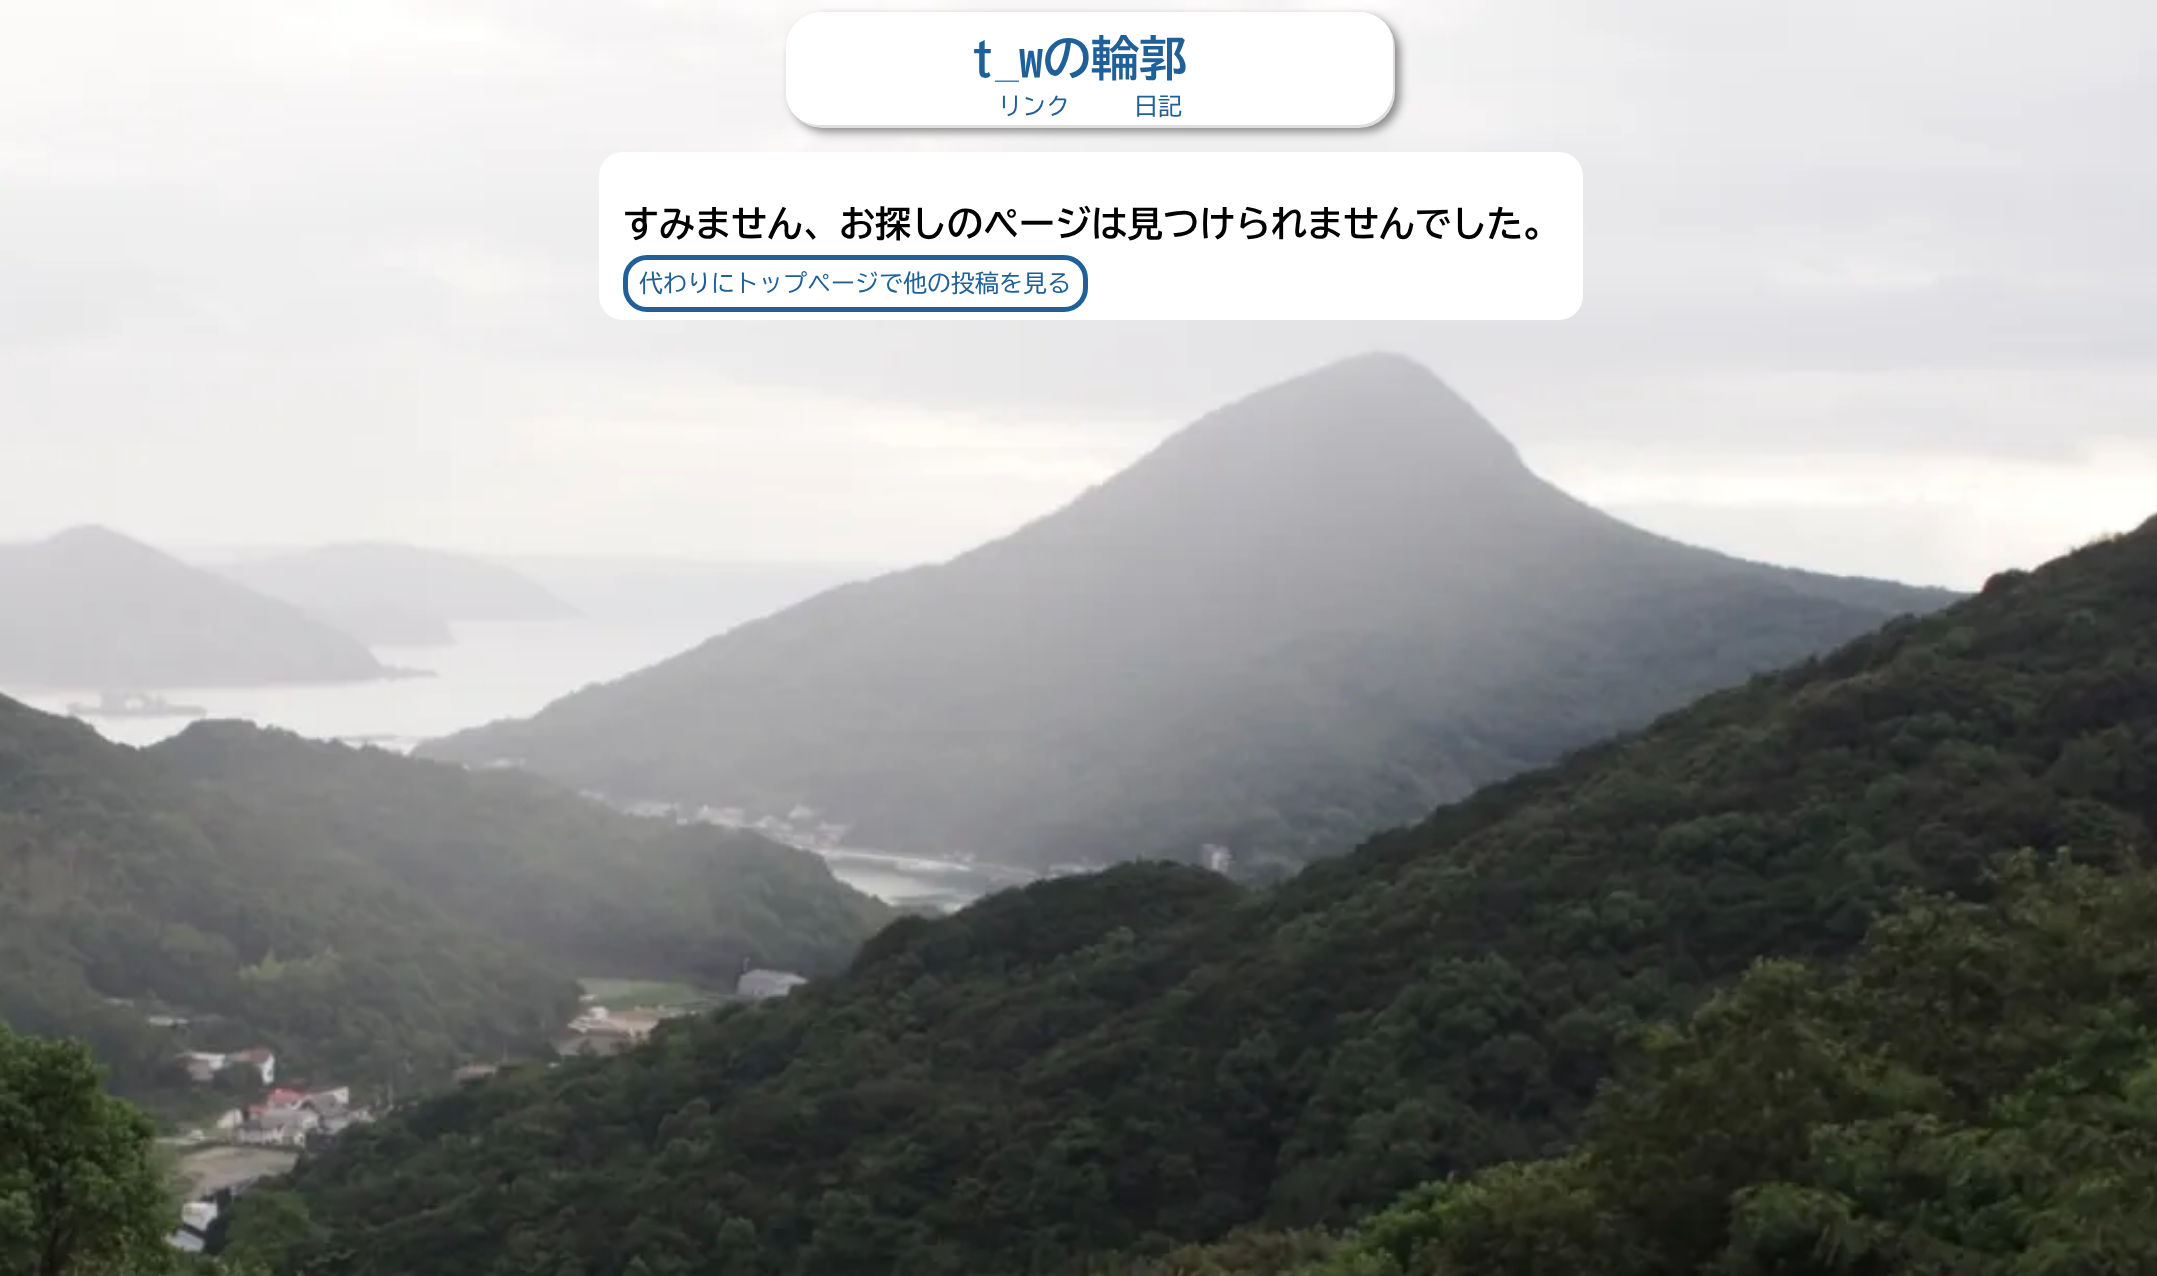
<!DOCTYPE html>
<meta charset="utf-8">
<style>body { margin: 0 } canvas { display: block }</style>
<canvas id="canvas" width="2157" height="1276"></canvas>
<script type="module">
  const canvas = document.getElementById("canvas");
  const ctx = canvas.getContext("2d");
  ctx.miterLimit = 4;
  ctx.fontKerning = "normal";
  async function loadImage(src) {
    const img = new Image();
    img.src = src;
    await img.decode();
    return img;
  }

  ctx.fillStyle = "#ffffff";
  ctx.fillRect(0, 0, 2157, 1276);
  ctx.drawImage(await loadImage("img1.png"), 0, 0, 2157, 1276);
  ctx.fillStyle = "#888888";
  ctx.filter = "blur(5px)";
  ctx.beginPath();
  ctx.roundRect(791, 17, 609, 115, 36);
  ctx.fill();
  ctx.filter = "none";
  ctx.fillStyle = "#ffffff";
  ctx.beginPath();
  ctx.roundRect(786, 12, 609, 116, 36);
  ctx.fill();
  ctx.fillStyle = "rgba(0, 0, 0, 0.13)";
  ctx.beginPath();
  ctx.moveTo(791, 111);
  ctx.bezierCurveTo(798, 121, 809, 128, 822, 128);
  ctx.lineTo(1359, 128);
  ctx.bezierCurveTo(1379, 128, 1395, 112, 1395, 92);
  ctx.lineTo(1395, 48);
  ctx.bezierCurveTo(1395, 40, 1392, 33, 1388, 27);
  ctx.bezierCurveTo(1391, 32, 1393, 38, 1393, 45);
  ctx.lineTo(1393, 89);
  ctx.bezierCurveTo(1393, 109, 1377, 125, 1357, 125);
  ctx.lineTo(820, 125);
  ctx.bezierCurveTo(808, 125, 798, 120, 791, 111);
  ctx.closePath();
  ctx.fill();
  ctx.fillStyle = "#ffffff";
  ctx.beginPath();
  ctx.moveTo(824, 15);
  ctx.lineTo(1361, 15);
  ctx.bezierCurveTo(1373, 15, 1383, 20, 1390, 29);
  ctx.bezierCurveTo(1383, 19, 1372, 12, 1359, 12);
  ctx.lineTo(822, 12);
  ctx.bezierCurveTo(802, 12, 786, 28, 786, 48);
  ctx.lineTo(786, 92);
  ctx.bezierCurveTo(786, 102, 790, 111, 797, 118);
  ctx.bezierCurveTo(791, 112, 788, 103, 788, 94);
  ctx.lineTo(788, 51);
  ctx.bezierCurveTo(788, 31, 804, 15, 824, 15);
  ctx.closePath();
  ctx.fill();
  ctx.font = "bold 48px BIZ UDGothic";
  ctx.fillStyle = "#1f6099";
  ctx.fillText("t_wの輪郭", 971, 76);
  ctx.font = "24px BIZ UDGothic";
  ctx.fillText("リンク", 998, 115);
  ctx.fillText("日記", 1134, 115);
  ctx.fillStyle = "#ffffff";
  ctx.beginPath();
  ctx.roundRect(599, 152, 984, 168, 24);
  ctx.fill();
  ctx.font = "bold 36px BIZ UDGothic";
  ctx.fillStyle = "#000000";
  ctx.fillText("すみません、お探しのページは見つけられませんでした。", 623, 237);
  ctx.beginPath();
  ctx.roundRect(625.5, 257.5, 460, 52, 21.5);
  ctx.strokeStyle = "#1f6099";
  ctx.lineWidth = 5;
  ctx.stroke();
  ctx.font = "24px BIZ UDGothic";
  ctx.fillStyle = "#1f6099";
  ctx.fillText("代わりにトップページで他の投稿を見る", 639, 292);
</script>
